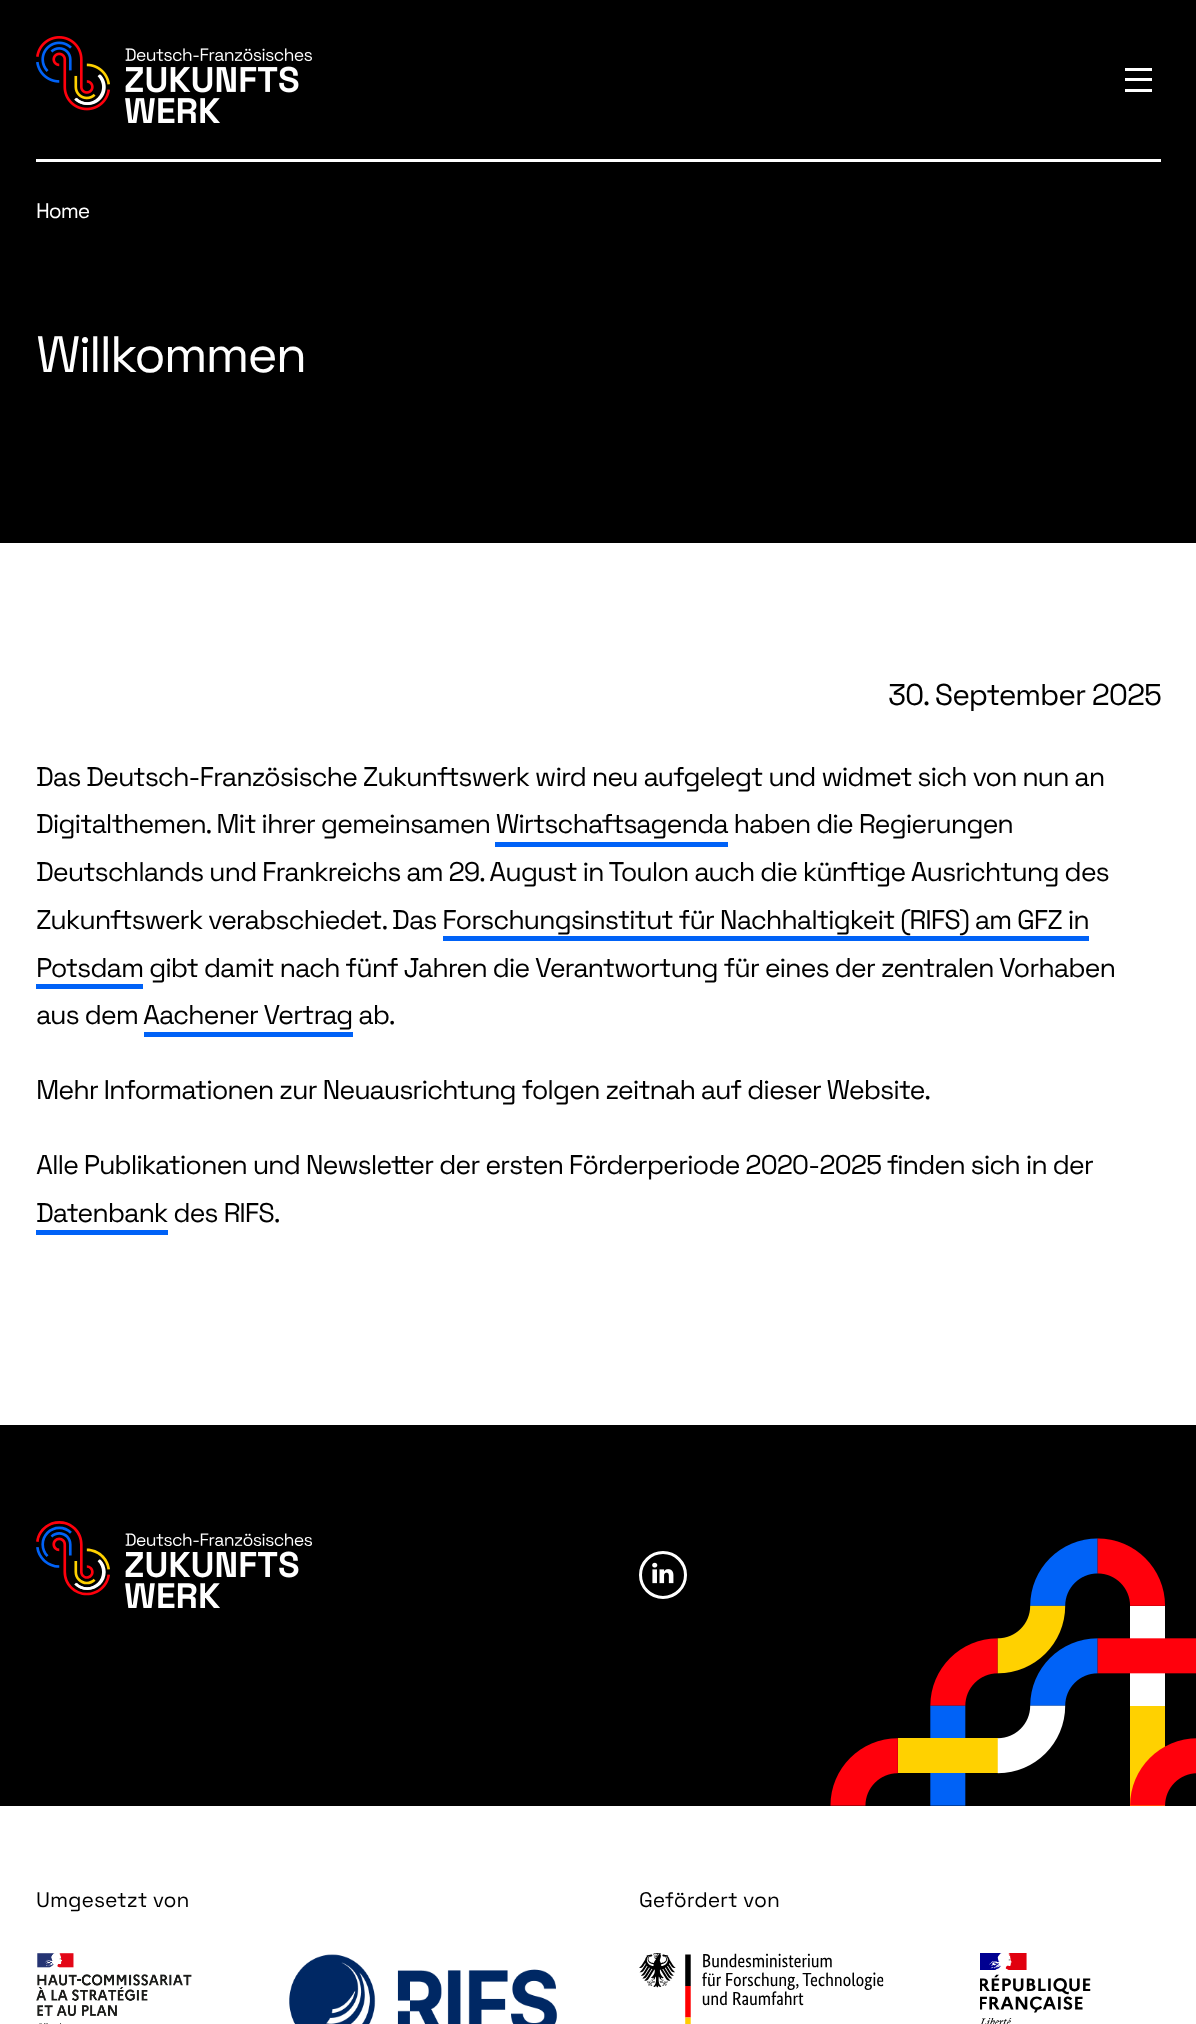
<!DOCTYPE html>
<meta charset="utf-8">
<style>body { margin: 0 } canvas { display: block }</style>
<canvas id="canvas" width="1196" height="2024"></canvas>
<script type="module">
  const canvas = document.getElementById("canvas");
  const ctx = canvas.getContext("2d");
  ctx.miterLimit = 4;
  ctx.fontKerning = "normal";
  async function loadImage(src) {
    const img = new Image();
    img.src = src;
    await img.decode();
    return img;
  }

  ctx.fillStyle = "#ffffff";
  ctx.fillRect(0, 0, 1196, 2024);
  ctx.fillStyle = "#000000";
  ctx.fillRect(0, 0, 1196, 543);
  ctx.drawImage(await loadImage("img1.png"), 36, 36, 276, 87);
  ctx.fillStyle = "#ffffff";
  ctx.fillRect(1125, 68, 27, 3);
  ctx.fillRect(1125, 78, 27, 3);
  ctx.fillRect(1125, 89, 27, 3);
  ctx.fillRect(36, 159, 1125, 3);
  ctx.letterSpacing = "-1px";
  ctx.font = "21px Space Grotesk";
  ctx.fillText("Home", 36, 218);
  ctx.letterSpacing = "-2px";
  ctx.font = "51px Space Grotesk";
  ctx.fillText("Willkommen", 36, 372);
  ctx.letterSpacing = "-1.08px";
  ctx.font = "30px Space Grotesk";
  ctx.fillStyle = "#000000";
  ctx.fillText("30. September 2025", 888, 705);
  ctx.font = "27px Space Grotesk";
  ctx.fillText("Das Deutsch-Französische Zukunftswerk wird neu aufgelegt und widmet sich von nun an", 36, 786);
  ctx.fillText("Digitalthemen. Mit ihrer gemeinsamen Wirtschaftsagenda haben die Regierungen", 36, 833);
  ctx.fillStyle = "#0062f7";
  ctx.fillRect(495, 842, 233, 5);
  ctx.fillStyle = "#000000";
  ctx.fillText("Deutschlands und Frankreichs am 29. August in Toulon auch die künftige Ausrichtung des", 36, 881);
  ctx.fillText("Zukunftswerk verabschiedet. Das Forschungsinstitut für Nachhaltigkeit (RIFS) am GFZ in", 36, 929);
  ctx.fillText("Potsdam gibt damit nach fünf Jahren die", 36, 977);
  ctx.fillStyle = "#0062f7";
  ctx.fillRect(443, 936, 646, 5);
  ctx.fillRect(36, 984, 107, 5);
  ctx.fillStyle = "#000000";
  ctx.fillText("Verantwortung für eines der zentralen Vorhaben", 535, 977);
  ctx.fillText("aus dem", 36, 1024);
  ctx.fillText("Aachener Vertrag ab.", 143, 1024);
  ctx.fillStyle = "#0062f7";
  ctx.fillRect(144, 1032, 209, 5);
  ctx.fillStyle = "#000000";
  ctx.fillText("Mehr Informationen zur Neuausrichtung folgen zeitnah auf dieser Website.", 36, 1099);
  ctx.fillText("Alle Publikationen und Newsletter der ersten Förderperiode 2020-2025 finden sich in der", 36, 1174);
  ctx.fillText("Datenbank des RIFS.", 36, 1222);
  ctx.fillStyle = "#0062f7";
  ctx.fillRect(36, 1230, 132, 5);
  ctx.fillStyle = "#000000";
  ctx.fillRect(0, 1425, 1196, 381);
  ctx.drawImage(await loadImage("img2.png"), 36, 1521, 276, 87);
  ctx.beginPath();
  ctx.arc(663, 1575, 22.5, 0, Math.PI * 2);
  ctx.strokeStyle = "#ffffff";
  ctx.lineWidth = 3;
  ctx.stroke();
  ctx.drawImage(await loadImage("img3.png"), 652, 1562, 22, 22);
  ctx.drawImage(await loadImage("img4.png"), 830, 1538, 366, 268);
  ctx.letterSpacing = "0px";
  ctx.font = "21px Space Grotesk";
  ctx.fillText("Umgesetzt von", 36, 1907);
  ctx.drawImage(await loadImage("img5.png"), 36, 1953, 156, 71);
  ctx.drawImage(await loadImage("img6.png"), 289, 1954, 269, 70);
  ctx.fillText("Gefördert von", 639, 1907);
  ctx.drawImage(await loadImage("img7.png"), 639, 1953, 245, 71);
  ctx.drawImage(await loadImage("img8.png"), 980, 1953, 111, 71);
</script>
